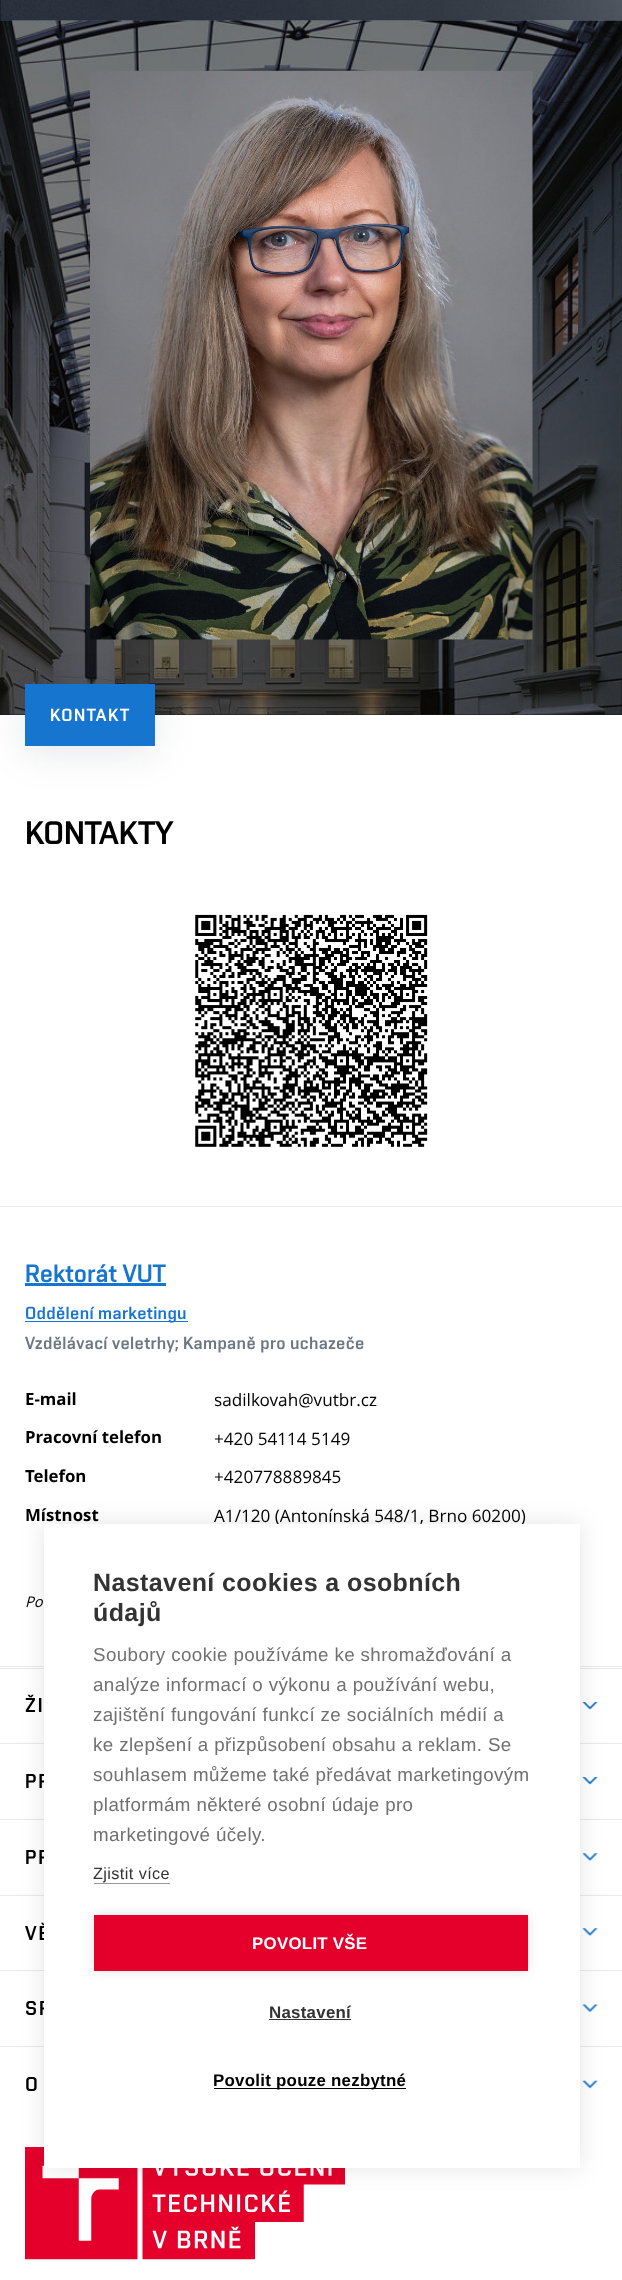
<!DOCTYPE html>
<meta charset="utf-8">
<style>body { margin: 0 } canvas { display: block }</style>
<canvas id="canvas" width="622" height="2280"></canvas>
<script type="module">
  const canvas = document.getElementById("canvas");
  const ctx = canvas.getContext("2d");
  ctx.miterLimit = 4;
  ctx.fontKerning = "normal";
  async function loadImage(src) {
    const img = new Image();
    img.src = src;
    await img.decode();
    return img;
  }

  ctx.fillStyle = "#ffffff";
  ctx.fillRect(0, 0, 622, 2280);
  ctx.fillStyle = "#2b313d";
  ctx.fillRect(0, 714, 622, 1);
  ctx.drawImage(await loadImage("img1.png"), 0, 0, 622, 21);
  ctx.drawImage(await loadImage("img2.png"), 0, 20, 622, 695);
  ctx.fillStyle = "rgba(0, 0, 0, 0.5)";
  ctx.fillRect(0, 21, 622, 694);
  ctx.drawImage(await loadImage("img3.png"), 90, 70, 443, 570);
  ctx.fillStyle = "rgba(12, 22, 39, 0.1)";
  ctx.filter = "blur(19px)";
  ctx.beginPath();
  ctx.rect(25, 690, 130, 63);
  ctx.fill();
  ctx.filter = "none";
  ctx.fillStyle = "#1675cf";
  ctx.fillRect(25, 684, 130, 62);
  ctx.letterSpacing = "1.5px";
  ctx.font = "17.5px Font";
  ctx.fillStyle = "#ffffff";
  ctx.fillText("KONTAKT", 50, 721);
  ctx.letterSpacing = "0px";
  ctx.font = "32.5px Font";
  ctx.fillStyle = "#000000";
  ctx.fillText("KONTAKTY", 25, 844);
  ctx.drawImage(await loadImage("img4.png"), 195, 914, 233, 233);
  ctx.fillStyle = "#e8eaea";
  ctx.fillRect(0, 1206, 622, 1);
  ctx.font = "25px Font";
  ctx.fillStyle = "#1675cf";
  ctx.fillText("Rektorát VUT", 25, 1282);
  ctx.fillRect(25, 1283, 141, 3);
  ctx.fillRect(25, 1321, 163, 1);
  ctx.letterSpacing = "0.35px";
  ctx.font = "17.5px Font";
  ctx.fillText("Oddělení marketingu", 25, 1319);
  ctx.fillStyle = "#6c7784";
  ctx.fillText("Vzdělávací veletrhy; Kampaně pro uchazeče", 25, 1349);
  ctx.letterSpacing = "0px";
  ctx.font = "bold 17.5px Open Sans";
  ctx.fillStyle = "#000000";
  ctx.fillText("E-mail", 25, 1405);
  ctx.font = "17.5px Open Sans";
  ctx.fillText("sadilkovah@vutbr.cz", 214, 1406);
  ctx.font = "bold 17.5px Open Sans";
  ctx.fillText("Pracovní telefon", 25, 1443);
  ctx.font = "17.5px Open Sans";
  ctx.fillText("+420 54114 5149", 214, 1445);
  ctx.font = "bold 17.5px Open Sans";
  ctx.fillText("Telefon", 25, 1482);
  ctx.font = "17.5px Open Sans";
  ctx.fillText("+420778889845", 214, 1483);
  ctx.font = "bold 17.5px Open Sans";
  ctx.fillText("Místnost", 25, 1521);
  ctx.font = "17.5px Open Sans";
  ctx.fillText("A1/120 (Antonínská 548/1, Brno 60200)", 214, 1522);
  ctx.font = "italic 15px Open Sans";
  ctx.fillText("Po", 25, 1607);
  ctx.fillStyle = "#e8eaea";
  ctx.fillRect(0, 1666, 622, 1);
  ctx.fillRect(0, 1668, 622, 1);
  ctx.letterSpacing = "2px";
  ctx.font = "20px Font";
  ctx.fillStyle = "#000000";
  ctx.fillText("ŽI", 25, 1712);
  ctx.drawImage(await loadImage("img5.png"), 582, 1702, 16, 8);
  ctx.fillStyle = "#e8eaea";
  ctx.fillRect(0, 1743, 622, 1);
  ctx.fillStyle = "#000000";
  ctx.fillText("PR", 25, 1788);
  ctx.drawImage(await loadImage("img5.png"), 582, 1777, 16, 8);
  ctx.fillStyle = "#e8eaea";
  ctx.fillRect(0, 1819, 622, 1);
  ctx.fillStyle = "#000000";
  ctx.fillText("PR", 25, 1864);
  ctx.drawImage(await loadImage("img6.png"), 582, 1853, 16, 8);
  ctx.fillStyle = "#e8eaea";
  ctx.fillRect(0, 1895, 622, 1);
  ctx.fillStyle = "#000000";
  ctx.fillText("VĚ", 25, 1940);
  ctx.drawImage(await loadImage("img6.png"), 582, 1928, 16, 8);
  ctx.fillStyle = "#e8eaea";
  ctx.fillRect(0, 1970, 622, 1);
  ctx.fillStyle = "#000000";
  ctx.fillText("SP", 25, 2015);
  ctx.drawImage(await loadImage("img7.png"), 582, 2004, 16, 9);
  ctx.fillStyle = "#e8eaea";
  ctx.fillRect(0, 2046, 622, 1);
  ctx.fillStyle = "#000000";
  ctx.fillText("O", 25, 2091);
  ctx.drawImage(await loadImage("img8.png"), 582, 2080, 16, 9);
  ctx.drawImage(await loadImage("img9.png"), 25, 2147, 320, 113);
  ctx.fillStyle = "rgba(0, 0, 0, 0.1)";
  ctx.filter = "blur(12.5px)";
  ctx.beginPath();
  ctx.rect(44, 1524, 536, 644);
  ctx.fill();
  ctx.filter = "none";
  ctx.fillStyle = "#ffffff";
  ctx.fillRect(44, 1524, 536, 644);
  ctx.letterSpacing = "0.4px";
  ctx.font = "bold 25px Liberation Sans";
  ctx.fillStyle = "#333333";
  ctx.fillText("Nastavení cookies a osobních", 93, 1591);
  ctx.fillText("údajů", 93, 1621);
  ctx.font = "18.75px Liberation Sans";
  ctx.fillStyle = "#707070";
  ctx.fillText("Soubory cookie používáme ke shromažďování a", 93, 1661);
  ctx.fillText("analýze informací o výkonu a používání webu,", 93, 1691);
  ctx.fillText("zajištění fungování funkcí ze sociálních médií a", 93, 1721);
  ctx.fillText("ke zlepšení a přizpůsobení obsahu a reklam. Se", 93, 1751);
  ctx.fillText("souhlasem můžeme také předávat marketingovým", 93, 1781);
  ctx.fillText("platformám některé osobní údaje pro", 93, 1811);
  ctx.fillText("marketingové účely.", 93, 1841);
  ctx.font = "16.25px Liberation Sans";
  ctx.fillStyle = "#333333";
  ctx.fillText("Zjistit více", 93, 1879);
  ctx.fillStyle = "#999999";
  ctx.fillRect(94, 1883, 76, 1);
  ctx.fillStyle = "rgba(0, 0, 0, 0.12)";
  ctx.filter = "blur(6px)";
  ctx.beginPath();
  ctx.rect(94, 1915, 434, 56);
  ctx.fill();
  ctx.filter = "none";
  ctx.fillStyle = "#e4002b";
  ctx.fillRect(94, 1915, 434, 56);
  ctx.letterSpacing = "0.25px";
  ctx.font = "bold 16.9px Liberation Sans";
  ctx.fillStyle = "#ffffff";
  ctx.fillText("POVOLIT VŠE", 252, 1949);
  ctx.fillStyle = "#333333";
  ctx.fillText("Nastavení", 269, 2018);
  ctx.fillRect(269, 2019, 82, 1);
  ctx.fillStyle = "#000000";
  ctx.fillRect(214, 2088, 192, 1);
  ctx.fillText("Povolit pouze nezbytné", 213, 2086);
</script>
